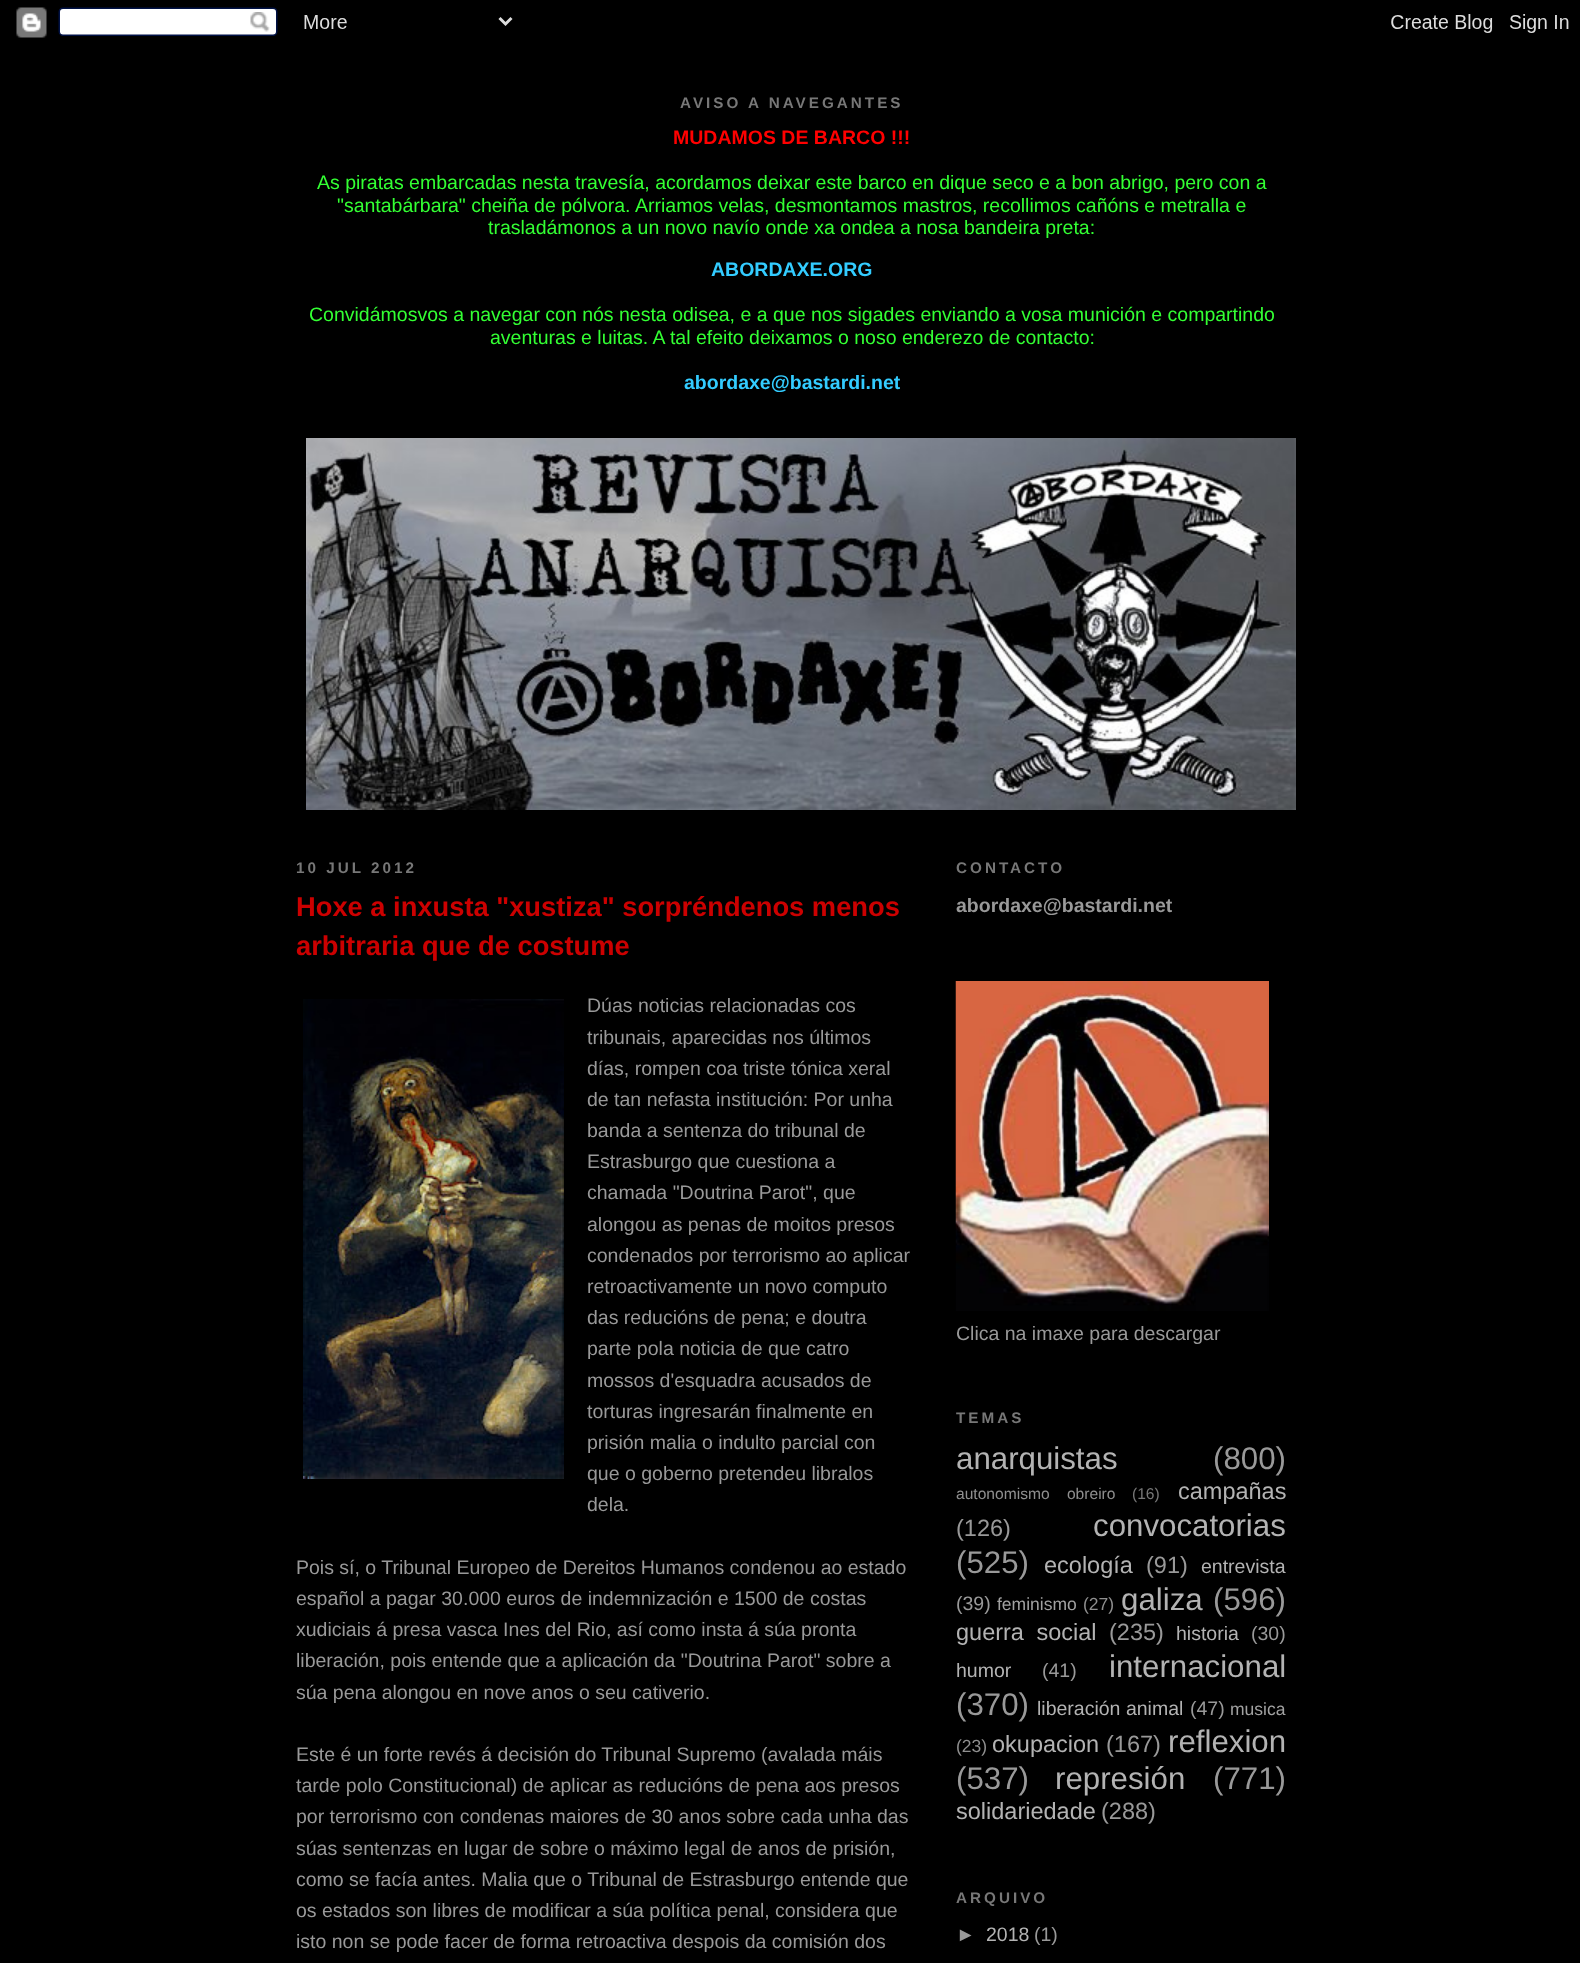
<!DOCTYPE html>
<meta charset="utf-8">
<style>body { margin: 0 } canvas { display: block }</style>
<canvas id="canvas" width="1580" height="1963"></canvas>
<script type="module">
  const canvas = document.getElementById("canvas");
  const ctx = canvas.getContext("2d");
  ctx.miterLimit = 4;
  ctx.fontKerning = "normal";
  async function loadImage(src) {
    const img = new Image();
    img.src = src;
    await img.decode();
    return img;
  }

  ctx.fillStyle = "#000000";
  ctx.fillRect(0, 0, 1580, 1963);
  ctx.drawImage(await loadImage("img1.png"), 16, 7, 1553, 31);
  ctx.letterSpacing = "3px";
  ctx.font = "bold 15.25px Liberation Sans";
  ctx.fillStyle = "#777777";
  ctx.fillText("AVISO", 680, 108);
  ctx.fillText("A NAVEGANTES", 748, 108);
  ctx.letterSpacing = "0px";
  ctx.font = "bold 19.5px Liberation Sans";
  ctx.fillStyle = "#ff0000";
  ctx.fillText("MUDAMOS DE BARCO !!!", 673, 144);
  ctx.font = "19.5px Liberation Sans";
  ctx.fillStyle = "#33ff33";
  ctx.fillText("As piratas embarcadas nesta travesía, acordamos deixar este barco en dique seco e a bon abrigo, pero con a", 317, 189);
  ctx.fillText("\"santabárbara\" cheiña de pólvora.", 337, 212);
  ctx.fillText("Arriamos velas, desmontamos mastros, recollimos cañóns e metralla e", 635, 212);
  ctx.fillText("trasladámonos a un novo navío onde xa ondea a nosa bandeira preta:", 488, 234);
  ctx.font = "bold 19.5px Liberation Sans";
  ctx.fillStyle = "#33ccff";
  ctx.fillText("ABORDAXE.ORG", 711, 276);
  ctx.font = "19.5px Liberation Sans";
  ctx.fillStyle = "#33ff33";
  ctx.fillText("Convidámosvos a navegar con nós nesta odisea, e a que nos sigades enviando a vosa munición e compartindo", 309, 321);
  ctx.fillText("aventuras e luitas. A tal efeito deixamos o noso enderezo de contacto:", 490, 344);
  ctx.font = "bold 19.5px Liberation Sans";
  ctx.fillStyle = "#33ccff";
  ctx.fillText("abordaxe@bastardi.net", 684, 389);
  ctx.drawImage(await loadImage("img2.png"), 306, 438, 990, 372);
  ctx.letterSpacing = "3px";
  ctx.font = "bold 15.25px Liberation Sans";
  ctx.fillStyle = "#777777";
  ctx.fillText("10 JUL 2012", 296, 873);
  ctx.letterSpacing = "0px";
  ctx.font = "bold 27.3px Liberation Sans";
  ctx.fillStyle = "#cc0000";
  ctx.fillText("Hoxe a inxusta \"xustiza\" sorpréndenos menos", 296, 916);
  ctx.fillText("arbitraria que de costume", 296, 955);
  ctx.drawImage(await loadImage("img3.png"), 303, 999, 261, 480);
  ctx.font = "19.5px Liberation Sans";
  ctx.fillStyle = "#999999";
  ctx.fillText("Dúas noticias relacionadas cos", 587, 1012);
  ctx.fillText("tribunais, aparecidas nos últimos", 587, 1044);
  ctx.fillText("días, rompen coa triste tónica xeral", 587, 1075);
  ctx.fillText("de tan nefasta institución: Por unha", 587, 1106);
  ctx.fillText("banda a sentenza do tribunal de", 587, 1137);
  ctx.fillText("Estrasburgo que cuestiona a", 587, 1168);
  ctx.fillText("chamada \"Doutrina Parot\", que", 587, 1199);
  ctx.fillText("alongou as penas de moitos presos", 587, 1231);
  ctx.fillText("condenados por terrorismo ao aplicar", 587, 1262);
  ctx.fillText("retroactivamente un novo computo", 587, 1293);
  ctx.fillText("das reducións de pena; e doutra", 587, 1324);
  ctx.fillText("parte pola noticia de que catro", 587, 1355);
  ctx.fillText("mossos d'esquadra acusados de", 587, 1387);
  ctx.fillText("torturas ingresarán finalmente en", 587, 1418);
  ctx.fillText("prisión malia o indulto parcial con", 587, 1449);
  ctx.fillText("que o goberno pretendeu libralos", 587, 1480);
  ctx.fillText("dela.", 587, 1511);
  ctx.fillText("Pois sí, o Tribunal Europeo de Dereitos Humanos condenou ao estado", 296, 1574);
  ctx.fillText("español a pagar 30.000 euros de indemnización e 1500 de costas", 296, 1605);
  ctx.fillText("xudiciais á presa vasca Ines del Rio, así como insta á súa pronta", 296, 1636);
  ctx.fillText("liberación, pois entende que a aplicación da \"Doutrina Parot\" sobre a", 296, 1667);
  ctx.fillText("súa pena alongou en nove anos o seu cativerio.", 296, 1699);
  ctx.fillText("Este é un forte revés á decisión do Tribunal Supremo (avalada máis", 296, 1761);
  ctx.fillText("tarde polo Constitucional) de aplicar as reducións de pena aos presos", 296, 1792);
  ctx.fillText("por terrorismo con condenas maiores de 30 anos sobre cada unha das", 296, 1823);
  ctx.fillText("súas sentenzas en lugar de sobre o máximo legal de anos de prisión,", 296, 1855);
  ctx.fillText("como se facía antes. Malia que o Tribunal de Estrasburgo entende que", 296, 1886);
  ctx.fillText("os estados son libres de modificar a súa política penal, considera que", 296, 1917);
  ctx.fillText("isto non se pode facer de forma retroactiva despois da comisión dos", 296, 1948);
  ctx.letterSpacing = "3px";
  ctx.font = "bold 15.25px Liberation Sans";
  ctx.fillStyle = "#777777";
  ctx.fillText("CONTACTO", 956, 873);
  ctx.letterSpacing = "0px";
  ctx.font = "bold 19.5px Liberation Sans";
  ctx.fillStyle = "#999999";
  ctx.fillText("abordaxe@bastardi.net", 956, 912);
  ctx.drawImage(await loadImage("img4.png"), 955, 981, 314, 330);
  ctx.font = "19.5px Liberation Sans";
  ctx.fillText("Clica na imaxe para descargar", 956, 1340);
  ctx.save();
  ctx.beginPath();
  ctx.rect(956, 836, 330, 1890);
  ctx.clip();
  ctx.letterSpacing = "3px";
  ctx.font = "bold 15.25px Liberation Sans";
  ctx.fillStyle = "#777777";
  ctx.fillText("TEMAS", 956, 1423);
  ctx.restore();
  ctx.font = "31.25px Liberation Sans";
  ctx.fillStyle = "#b3b3b3";
  ctx.fillText("anarquistas", 956, 1469);
  ctx.fillStyle = "#999999";
  ctx.fillText("(800)", 1213, 1469);
  ctx.wordSpacing = "13px";
  ctx.font = "15.6px Liberation Sans";
  ctx.fillStyle = "#8f8f8f";
  ctx.fillText("autonomismo obreiro", 956, 1499);
  ctx.wordSpacing = "0px";
  ctx.fillStyle = "#777777";
  ctx.fillText("(16)", 1132, 1499);
  ctx.font = "23.5px Liberation Sans";
  ctx.fillStyle = "#b3b3b3";
  ctx.fillText("campañas", 1178, 1499);
  ctx.fillStyle = "#999999";
  ctx.fillText("(126)", 956, 1536);
  ctx.font = "31.25px Liberation Sans";
  ctx.fillStyle = "#b3b3b3";
  ctx.fillText("convocatorias", 1093, 1536);
  ctx.fillStyle = "#999999";
  ctx.fillText("(525)", 956, 1573);
  ctx.font = "23.5px Liberation Sans";
  ctx.fillStyle = "#b3b3b3";
  ctx.fillText("ecología", 1044, 1573);
  ctx.fillStyle = "#999999";
  ctx.fillText("(91)", 1146, 1573);
  ctx.font = "19.5px Liberation Sans";
  ctx.fillStyle = "#b3b3b3";
  ctx.fillText("entrevista", 1201, 1573);
  ctx.fillStyle = "#999999";
  ctx.fillText("(39)", 956, 1610);
  ctx.font = "17.5px Liberation Sans";
  ctx.fillStyle = "#a1a1a1";
  ctx.fillText("feminismo", 997, 1610);
  ctx.fillStyle = "#8f8f8f";
  ctx.fillText("(27)", 1083, 1610);
  ctx.font = "31.25px Liberation Sans";
  ctx.fillStyle = "#b3b3b3";
  ctx.fillText("galiza", 1121, 1610);
  ctx.fillStyle = "#999999";
  ctx.fillText("(596)", 1213, 1610);
  ctx.wordSpacing = "6px";
  ctx.font = "23.5px Liberation Sans";
  ctx.fillStyle = "#b3b3b3";
  ctx.fillText("guerra social", 956, 1640);
  ctx.wordSpacing = "0px";
  ctx.fillStyle = "#999999";
  ctx.fillText("(235)", 1109, 1640);
  ctx.font = "19.5px Liberation Sans";
  ctx.fillStyle = "#b3b3b3";
  ctx.fillText("historia", 1176, 1640);
  ctx.fillStyle = "#999999";
  ctx.fillText("(30)", 1251, 1640);
  ctx.fillStyle = "#b3b3b3";
  ctx.fillText("humor", 956, 1677);
  ctx.fillStyle = "#999999";
  ctx.fillText("(41)", 1042, 1677);
  ctx.font = "31.25px Liberation Sans";
  ctx.fillStyle = "#b3b3b3";
  ctx.fillText("internacional", 1109, 1677);
  ctx.fillStyle = "#999999";
  ctx.fillText("(370)", 956, 1715);
  ctx.font = "19.5px Liberation Sans";
  ctx.fillStyle = "#b3b3b3";
  ctx.fillText("liberación animal", 1037, 1715);
  ctx.fillStyle = "#999999";
  ctx.fillText("(47)", 1190, 1715);
  ctx.font = "17.5px Liberation Sans";
  ctx.fillStyle = "#a1a1a1";
  ctx.fillText("musica", 1230, 1715);
  ctx.fillStyle = "#8f8f8f";
  ctx.fillText("(23)", 956, 1752);
  ctx.font = "23.5px Liberation Sans";
  ctx.fillStyle = "#b3b3b3";
  ctx.fillText("okupacion", 992, 1752);
  ctx.fillStyle = "#999999";
  ctx.fillText("(167)", 1106, 1752);
  ctx.font = "31.25px Liberation Sans";
  ctx.fillStyle = "#b3b3b3";
  ctx.fillText("reflexion", 1168, 1752);
  ctx.fillStyle = "#999999";
  ctx.fillText("(537)", 956, 1789);
  ctx.fillStyle = "#b3b3b3";
  ctx.fillText("represión", 1055, 1789);
  ctx.fillStyle = "#999999";
  ctx.fillText("(771)", 1213, 1789);
  ctx.font = "23.5px Liberation Sans";
  ctx.fillStyle = "#b3b3b3";
  ctx.fillText("solidariedade", 956, 1819);
  ctx.fillStyle = "#999999";
  ctx.fillText("(288)", 1101, 1819);
  ctx.letterSpacing = "3px";
  ctx.font = "bold 15.25px Liberation Sans";
  ctx.fillStyle = "#777777";
  ctx.fillText("ARQUIVO", 956, 1903);
  ctx.letterSpacing = "0px";
  ctx.font = "19.5px Liberation Sans";
  ctx.fillStyle = "#999999";
  ctx.fillText("►", 956, 1941);
  ctx.fillStyle = "#b3b3b3";
  ctx.fillText("2018", 986, 1941);
  ctx.fillStyle = "#999999";
  ctx.fillText("(1)", 1034, 1941);
</script>
